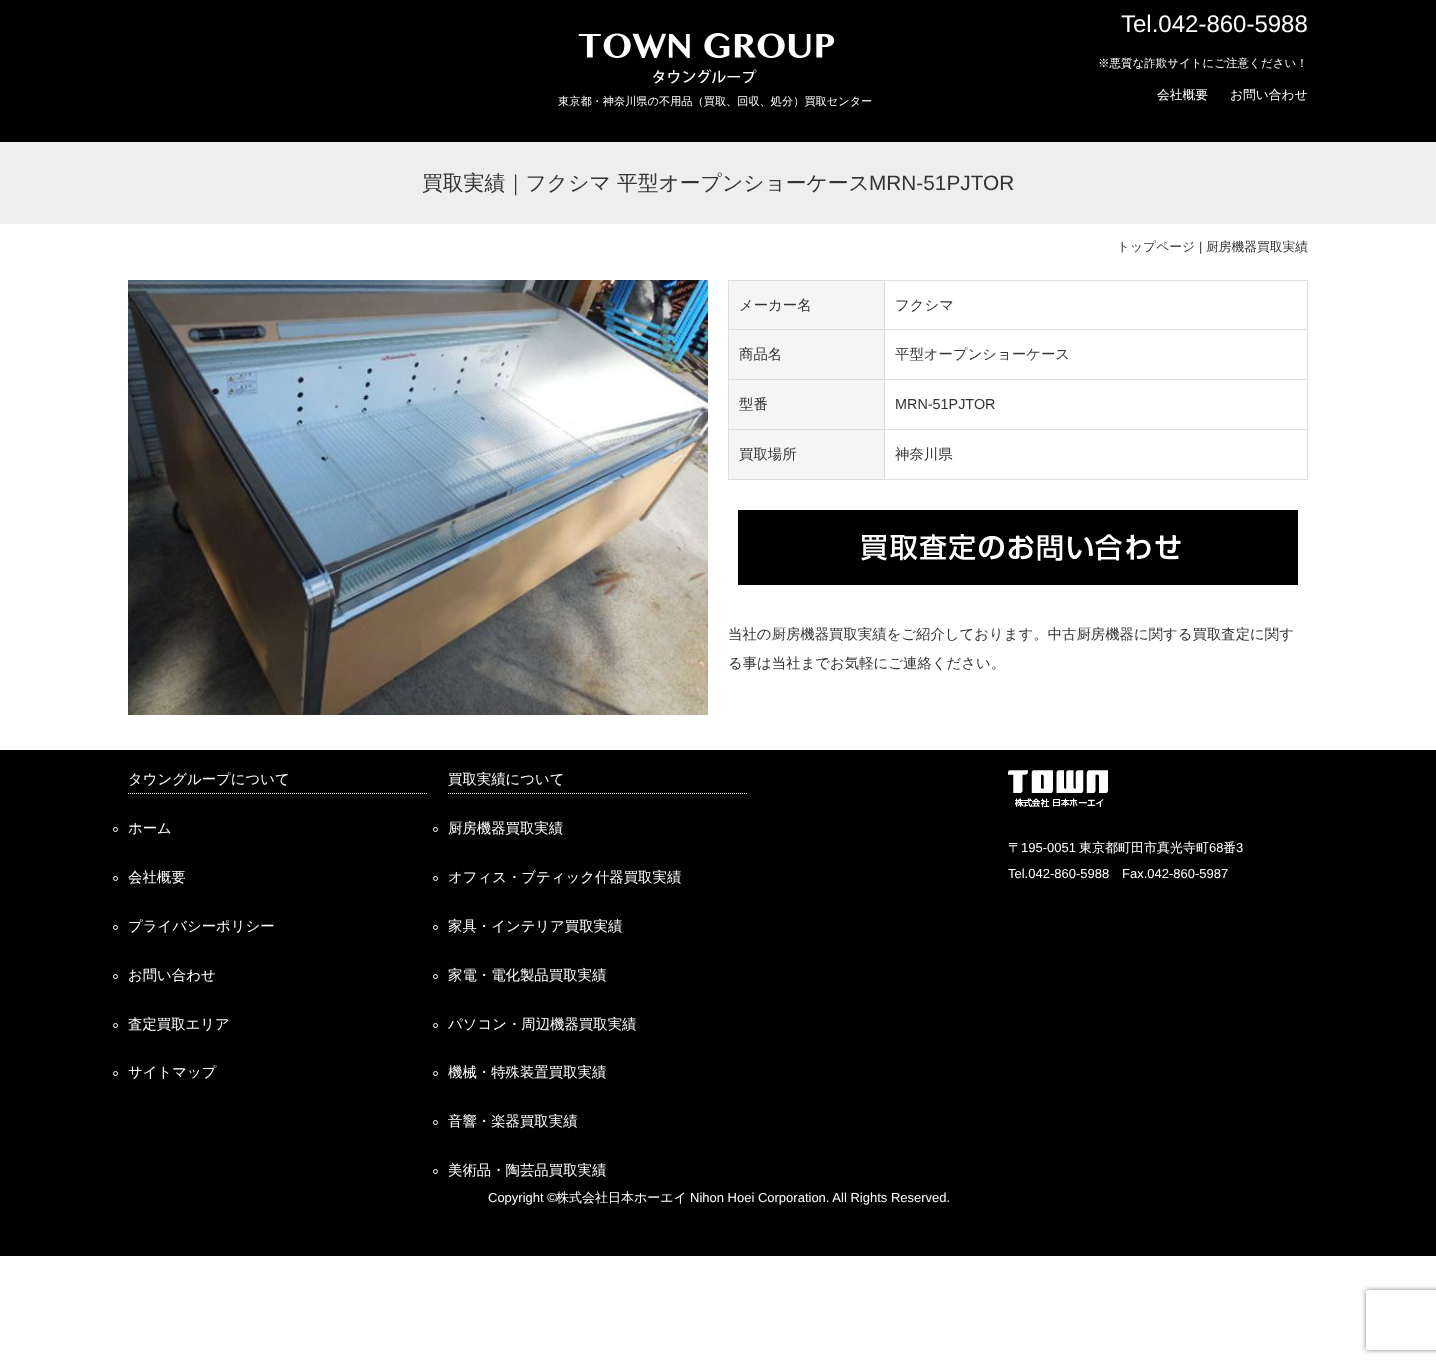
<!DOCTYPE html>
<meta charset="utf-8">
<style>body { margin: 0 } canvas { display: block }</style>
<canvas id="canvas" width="1436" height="1364"></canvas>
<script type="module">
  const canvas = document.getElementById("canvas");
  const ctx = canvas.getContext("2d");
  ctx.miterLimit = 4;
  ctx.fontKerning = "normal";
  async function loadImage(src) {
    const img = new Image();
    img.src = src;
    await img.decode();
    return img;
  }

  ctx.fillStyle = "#ffffff";
  ctx.fillRect(0, 0, 1436, 1364);
  ctx.fillStyle = "#000000";
  ctx.fillRect(0, 0, 1436, 142);
  ctx.drawImage(await loadImage("img1.png"), 578, 33, 257, 51);
  ctx.font = "500 11.2px WenQuanYi Zen Hei";
  ctx.fillStyle = "#ffffff";
  ctx.fillText("東京都・神奈川県の不用品（買取、回収、処分）買取センター", 558, 105);
  ctx.font = "24px Liberation Sans";
  ctx.fillText("Tel.042-860-5988", 1121, 32);
  ctx.font = "500 11.5px WenQuanYi Zen Hei";
  ctx.fillText("※悪質な詐欺サイトにご注意ください！", 1098, 67);
  ctx.font = "500 12.75px WenQuanYi Zen Hei";
  ctx.fillText("会社概要", 1157, 99);
  ctx.fillText("お問い合わせ", 1230, 99);
  ctx.fillStyle = "#eeeeee";
  ctx.fillRect(0, 142, 1436, 82);
  ctx.font = "500 20.8px WenQuanYi Zen Hei";
  ctx.fillStyle = "#333333";
  ctx.fillText("買取実績｜フクシマ 平型オープンショーケース", 422, 190);
  ctx.font = "20.8px Liberation Sans";
  ctx.fillText("MRN-51PJTOR", 869, 190);
  ctx.font = "500 12.75px WenQuanYi Zen Hei";
  ctx.fillText("トップページ", 1117, 251);
  ctx.font = "12.75px Liberation Sans";
  ctx.fillText("|", 1199, 251);
  ctx.font = "500 12.75px WenQuanYi Zen Hei";
  ctx.fillText("厨房機器買取実績", 1206, 251);
  ctx.drawImage(await loadImage("img2.png"), 128, 280, 580, 435);
  ctx.fillStyle = "#f5f5f5";
  ctx.fillRect(729, 281, 155, 48);
  ctx.fillStyle = "#dddddd";
  ctx.fillRect(884, 280, 424, 1);
  ctx.fillRect(884, 329, 424, 1);
  ctx.fillRect(884, 379, 424, 1);
  ctx.fillRect(884, 429, 424, 1);
  ctx.fillRect(1307, 429, 1, 51);
  ctx.fillRect(884, 479, 424, 1);
  ctx.fillRect(884, 429, 1, 51);
  ctx.fillRect(728, 429, 157, 1);
  ctx.fillRect(884, 379, 1, 51);
  ctx.fillRect(728, 379, 157, 1);
  ctx.fillRect(884, 329, 1, 51);
  ctx.fillRect(728, 329, 157, 1);
  ctx.fillRect(884, 280, 1, 50);
  ctx.fillRect(728, 280, 157, 1);
  ctx.fillRect(728, 479, 157, 1);
  ctx.fillRect(728, 429, 1, 51);
  ctx.fillRect(728, 379, 1, 51);
  ctx.fillRect(728, 329, 1, 51);
  ctx.fillRect(728, 280, 1, 50);
  ctx.font = "500 14.4px WenQuanYi Zen Hei";
  ctx.fillStyle = "#333333";
  ctx.fillText("メーカー名", 739, 310);
  ctx.fillStyle = "#dddddd";
  ctx.fillRect(1307, 379, 1, 51);
  ctx.fillRect(1307, 329, 1, 51);
  ctx.fillRect(1307, 280, 1, 50);
  ctx.fillStyle = "#333333";
  ctx.fillText("フクシマ", 895, 310);
  ctx.fillStyle = "#f5f5f5";
  ctx.fillRect(729, 330, 155, 49);
  ctx.fillStyle = "#333333";
  ctx.fillText("商品名", 739, 359);
  ctx.fillText("平型オープンショーケース", 895, 359);
  ctx.fillStyle = "#f5f5f5";
  ctx.fillRect(729, 380, 155, 49);
  ctx.fillStyle = "#333333";
  ctx.fillText("型番", 739, 409);
  ctx.font = "14.4px Liberation Sans";
  ctx.fillText("MRN-51PJTOR", 895, 409);
  ctx.fillStyle = "#f5f5f5";
  ctx.fillRect(729, 430, 155, 49);
  ctx.font = "500 14.4px WenQuanYi Zen Hei";
  ctx.fillStyle = "#333333";
  ctx.fillText("買取場所", 739, 459);
  ctx.fillText("神奈川県", 895, 459);
  ctx.drawImage(await loadImage("img3.png"), 738, 510, 560, 75);
  ctx.fillText("当社の厨房機器買取実績をご紹介しております。中古厨房機器に関する買取査定に関す", 728, 639);
  ctx.fillText("る事は当社までお気軽にご連絡ください。", 728, 668);
  ctx.fillStyle = "#000000";
  ctx.fillRect(0, 750, 1436, 506);
  ctx.beginPath();
  ctx.moveTo(128, 793.5);
  ctx.lineTo(428, 793.5);
  ctx.strokeStyle = "#ffffff";
  ctx.setLineDash([1, 1]);
  ctx.stroke();
  ctx.fillStyle = "#ffffff";
  ctx.fillText("タウングループについて", 128, 784);
  ctx.beginPath();
  ctx.arc(115.5, 829.5, 2, 0, Math.PI * 2);
  ctx.setLineDash([]);
  ctx.stroke();
  ctx.fillText("ホーム", 128, 833);
  ctx.beginPath();
  ctx.arc(115.5, 878.5, 2, 0, Math.PI * 2);
  ctx.stroke();
  ctx.fillText("会社概要", 128, 882);
  ctx.beginPath();
  ctx.arc(115.5, 927.5, 2, 0, Math.PI * 2);
  ctx.stroke();
  ctx.fillText("プライバシーポリシー", 128, 931);
  ctx.beginPath();
  ctx.arc(115.5, 976.5, 2, 0, Math.PI * 2);
  ctx.stroke();
  ctx.fillText("お問い合わせ", 128, 980);
  ctx.beginPath();
  ctx.arc(115.5, 1025.5, 2, 0, Math.PI * 2);
  ctx.stroke();
  ctx.fillText("査定買取エリア", 128, 1029);
  ctx.beginPath();
  ctx.arc(115.5, 1073.5, 2, 0, Math.PI * 2);
  ctx.stroke();
  ctx.fillText("サイトマップ", 128, 1077);
  ctx.beginPath();
  ctx.moveTo(448, 793.5);
  ctx.lineTo(748, 793.5);
  ctx.setLineDash([1, 1]);
  ctx.stroke();
  ctx.fillText("買取実績について", 448, 784);
  ctx.beginPath();
  ctx.arc(435.5, 829.5, 2, 0, Math.PI * 2);
  ctx.setLineDash([]);
  ctx.stroke();
  ctx.fillText("厨房機器買取実績", 448, 833);
  ctx.beginPath();
  ctx.arc(435.5, 878.5, 2, 0, Math.PI * 2);
  ctx.stroke();
  ctx.fillText("オフィス・ブティック什器買取実績", 448, 882);
  ctx.beginPath();
  ctx.arc(435.5, 927.5, 2, 0, Math.PI * 2);
  ctx.stroke();
  ctx.fillText("家具・インテリア買取実績", 448, 931);
  ctx.beginPath();
  ctx.arc(435.5, 976.5, 2, 0, Math.PI * 2);
  ctx.stroke();
  ctx.fillText("家電・電化製品買取実績", 448, 980);
  ctx.beginPath();
  ctx.arc(435.5, 1025.5, 2, 0, Math.PI * 2);
  ctx.stroke();
  ctx.fillText("パソコン・周辺機器買取実績", 448, 1029);
  ctx.beginPath();
  ctx.arc(435.5, 1073.5, 2, 0, Math.PI * 2);
  ctx.stroke();
  ctx.fillText("機械・特殊装置買取実績", 448, 1077);
  ctx.beginPath();
  ctx.arc(435.5, 1122.5, 2, 0, Math.PI * 2);
  ctx.stroke();
  ctx.fillText("音響・楽器買取実績", 448, 1126);
  ctx.beginPath();
  ctx.arc(435.5, 1171.5, 2, 0, Math.PI * 2);
  ctx.stroke();
  ctx.fillText("美術品・陶芸品買取実績", 448, 1175);
  ctx.drawImage(await loadImage("img4.png"), 1008, 770, 100, 38);
  ctx.font = "500 13px WenQuanYi Zen Hei";
  ctx.fillText("〒", 1008, 852);
  ctx.font = "13px Liberation Sans";
  ctx.fillText("195-0051", 1021, 852);
  ctx.font = "500 13px WenQuanYi Zen Hei";
  ctx.fillText("東京都町田市真光寺町", 1079, 852);
  ctx.font = "13px Liberation Sans";
  ctx.fillText("68", 1209, 852);
  ctx.font = "500 13px WenQuanYi Zen Hei";
  ctx.fillText("番", 1223, 852);
  ctx.font = "13px Liberation Sans";
  ctx.fillText("3", 1236, 852);
  ctx.fillText("Tel.042-860-5988", 1008, 878);
  ctx.fillText("Fax.042-860-5987", 1122, 878);
  ctx.fillText("Copyright ©", 488, 1202);
  ctx.font = "500 13px WenQuanYi Zen Hei";
  ctx.fillText("株式会社日本ホーエイ", 556, 1202);
  ctx.font = "13px Liberation Sans";
  ctx.fillText("Nihon Hoei Corporation. All Rights Reserved.", 690, 1202);
  ctx.save();
  ctx.beginPath();
  ctx.moveTo(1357, 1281);
  ctx.lineTo(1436, 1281);
  ctx.lineTo(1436, 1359);
  ctx.lineTo(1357, 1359);
  ctx.closePath();
  ctx.moveTo(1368, 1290);
  ctx.lineTo(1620, 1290);
  ctx.bezierCurveTo(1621, 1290, 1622, 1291, 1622, 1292);
  ctx.lineTo(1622, 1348);
  ctx.bezierCurveTo(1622, 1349, 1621, 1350, 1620, 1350);
  ctx.lineTo(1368, 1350);
  ctx.bezierCurveTo(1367, 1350, 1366, 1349, 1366, 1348);
  ctx.lineTo(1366, 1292);
  ctx.bezierCurveTo(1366, 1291, 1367, 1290, 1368, 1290);
  ctx.closePath();
  ctx.clip("evenodd");
  ctx.fillStyle = "#808080";
  ctx.filter = "blur(2.5px)";
  ctx.beginPath();
  ctx.roundRect(1366, 1290, 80, 60, 2);
  ctx.fill();
  ctx.filter = "none";
  ctx.restore();
</script>
